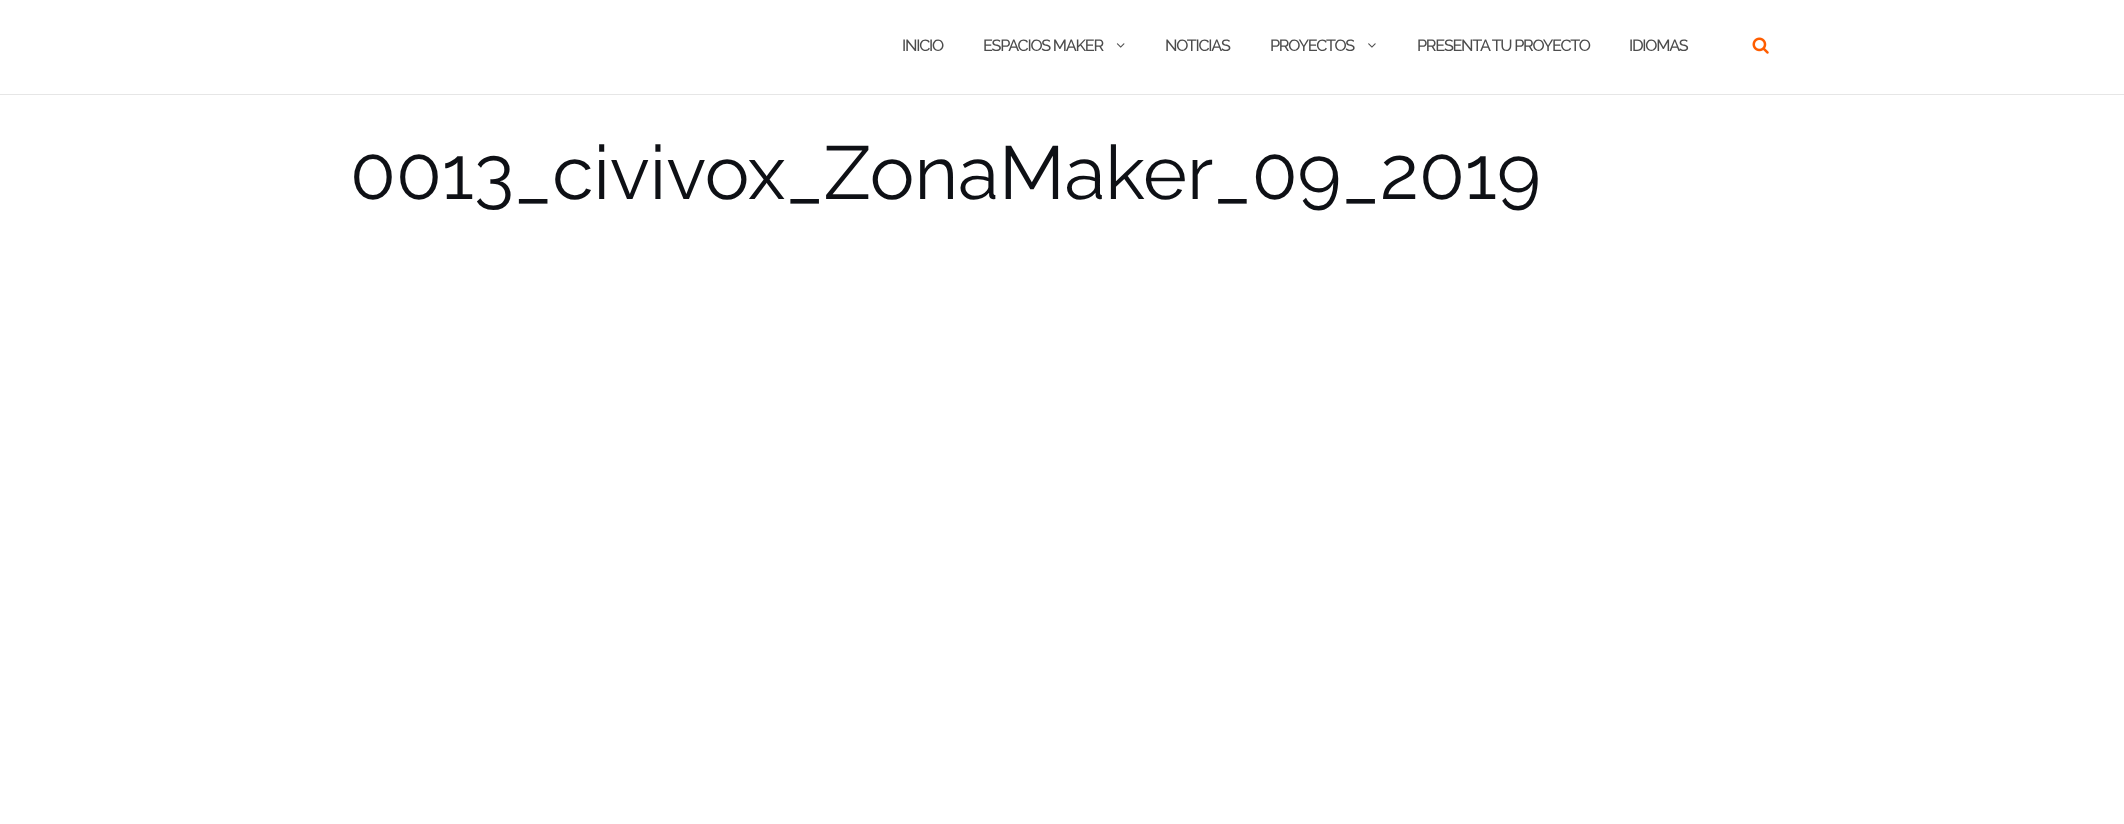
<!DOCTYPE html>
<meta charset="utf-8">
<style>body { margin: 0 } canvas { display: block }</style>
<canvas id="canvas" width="2124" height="824"></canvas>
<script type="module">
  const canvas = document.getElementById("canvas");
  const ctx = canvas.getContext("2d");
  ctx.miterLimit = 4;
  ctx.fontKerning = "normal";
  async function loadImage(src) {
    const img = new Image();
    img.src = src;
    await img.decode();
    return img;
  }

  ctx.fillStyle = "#ffffff";
  ctx.fillRect(0, 0, 2124, 824);
  ctx.fillStyle = "#e6e6e6";
  ctx.fillRect(0, 94, 2124, 1);
  ctx.letterSpacing = "-1.25px";
  ctx.font = "500 16.25px Raleway";
  ctx.fillStyle = "#4c4c4c";
  ctx.fillText("INICIO", 902, 51);
  ctx.fillText("ESPACIOS MAKER", 983, 51);
  ctx.drawImage(await loadImage("img1.png"), 1116, 43, 9, 5);
  ctx.fillText("NOTICIAS", 1165, 51);
  ctx.fillText("PROYECTOS", 1270, 51);
  ctx.drawImage(await loadImage("img2.png"), 1368, 43, 8, 5);
  ctx.fillText("PRESENTA TU PROYECTO", 1417, 51);
  ctx.fillText("IDIOMAS", 1629, 51);
  ctx.drawImage(await loadImage("img3.png"), 1752, 37, 17, 17);
  ctx.letterSpacing = "0px";
  ctx.font = "75px Raleway";
  ctx.fillStyle = "#0e1015";
  ctx.fillText("0013_civivox_ZonaMaker_09_2019", 350, 199);
</script>
